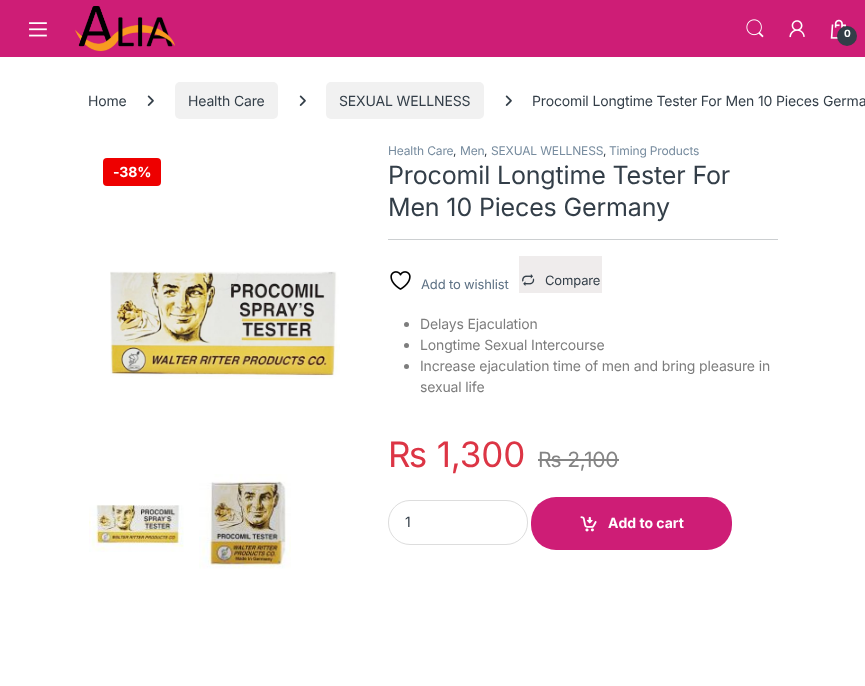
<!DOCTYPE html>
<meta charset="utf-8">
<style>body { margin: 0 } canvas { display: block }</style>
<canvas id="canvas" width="865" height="686"></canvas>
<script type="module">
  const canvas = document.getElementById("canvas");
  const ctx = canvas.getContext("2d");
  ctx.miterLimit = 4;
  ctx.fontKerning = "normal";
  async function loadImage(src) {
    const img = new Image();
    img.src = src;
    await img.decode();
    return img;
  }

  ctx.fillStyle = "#ffffff";
  ctx.fillRect(0, 0, 865, 686);
  ctx.fillStyle = "#ce1d76";
  ctx.fillRect(0, 0, 865, 57);
  ctx.drawImage(await loadImage("img1.png"), 29, 22, 18, 15);
  ctx.drawImage(await loadImage("img2.png"), 75, 6, 100, 46);
  ctx.drawImage(await loadImage("img3.png"), 746, 19, 18, 19);
  ctx.drawImage(await loadImage("img4.png"), 789, 20, 16, 18);
  ctx.drawImage(await loadImage("img5.png"), 830, 19, 17, 20);
  ctx.fillStyle = "#333e48";
  ctx.beginPath();
  ctx.arc(847, 36, 10, 0, Math.PI * 2);
  ctx.fill();
  ctx.letterSpacing = "-0.15px";
  ctx.font = "bold 10px Inter";
  ctx.fillStyle = "#ffffff";
  ctx.fillText("0", 844, 37);
  ctx.font = "14px Inter";
  ctx.fillStyle = "#333e48";
  ctx.fillText("Home", 88, 106);
  ctx.drawImage(await loadImage("img6.png"), 147, 95, 7, 11);
  ctx.fillStyle = "#f1f1f1";
  ctx.beginPath();
  ctx.roundRect(175, 82, 103, 37, 5);
  ctx.fill();
  ctx.fillStyle = "#333e48";
  ctx.fillText("Health Care", 188, 106);
  ctx.drawImage(await loadImage("img6.png"), 299, 95, 7, 11);
  ctx.fillStyle = "#f1f1f1";
  ctx.beginPath();
  ctx.roundRect(326, 82, 158, 37, 5);
  ctx.fill();
  ctx.fillStyle = "#333e48";
  ctx.fillText("SEXUAL WELLNESS", 339, 106);
  ctx.drawImage(await loadImage("img6.png"), 505, 95, 7, 11);
  ctx.fillText("Procomil Longtime Tester For Men 10 Pieces Germa", 532, 106);
  ctx.fillStyle = "#ee0000";
  ctx.beginPath();
  ctx.roundRect(103, 158, 58, 28, 4);
  ctx.fill();
  ctx.font = "bold 14px Inter";
  ctx.fillStyle = "#ffffff";
  ctx.fillText("-38%", 113, 177);
  ctx.drawImage(await loadImage("img7.png"), 110, 271, 230, 108);
  ctx.drawImage(await loadImage("img8.png"), 89, 504, 95, 48);
  ctx.drawImage(await loadImage("img9.png"), 199, 474, 92, 95);
  ctx.font = "12px Inter";
  ctx.fillStyle = "#768b9e";
  ctx.fillText("Health Care", 388, 155);
  ctx.fillStyle = "#333e48";
  ctx.fillText(",", 453, 155);
  ctx.fillStyle = "#768b9e";
  ctx.fillText("Men", 460, 155);
  ctx.fillStyle = "#333e48";
  ctx.fillText(",", 484, 155);
  ctx.fillStyle = "#768b9e";
  ctx.fillText("SEXUAL WELLNESS", 491, 155);
  ctx.fillStyle = "#333e48";
  ctx.fillText(",", 603, 155);
  ctx.fillStyle = "#768b9e";
  ctx.fillText("Timing Products", 609, 155);
  ctx.font = "25px Inter";
  ctx.fillStyle = "#333e48";
  ctx.fillText("Procomil Longtime Tester For", 388, 184);
  ctx.fillText("Men 10 Pieces Germany", 388, 216);
  ctx.fillStyle = "#cccfd1";
  ctx.fillRect(388, 239, 390, 1);
  ctx.drawImage(await loadImage("img10.png"), 390, 271, 21, 19);
  ctx.font = "13px Inter";
  ctx.fillStyle = "#5d7184";
  ctx.fillText("Add to wishlist", 421, 289);
  ctx.fillStyle = "#efecec";
  ctx.fillRect(519, 256, 83, 37);
  ctx.drawImage(await loadImage("img11.png"), 522, 274, 13, 12);
  ctx.fillStyle = "#333e48";
  ctx.fillText("Compare", 545, 285);
  ctx.fillStyle = "#7d7d7d";
  ctx.beginPath();
  ctx.arc(406.5, 324.5, 2.5, 0, Math.PI * 2);
  ctx.fill();
  ctx.font = "14px Inter";
  ctx.fillText("Delays Ejaculation", 420, 329);
  ctx.beginPath();
  ctx.arc(406.5, 345.5, 2.5, 0, Math.PI * 2);
  ctx.fill();
  ctx.fillText("Longtime Sexual Intercourse", 420, 350);
  ctx.beginPath();
  ctx.arc(406.5, 366.5, 2.5, 0, Math.PI * 2);
  ctx.fill();
  ctx.fillText("Increase ejaculation time of men and bring pleasure in", 420, 371);
  ctx.fillText("sexual life", 420, 392);
  ctx.font = "35px Inter";
  ctx.fillStyle = "#dc3545";
  ctx.fillText("₨ 1,300", 388, 467);
  ctx.font = "21px Inter";
  ctx.fillStyle = "#848484";
  ctx.fillText("₨ 2,100", 538, 467);
  ctx.fillRect(538, 459, 81, 2);
  ctx.beginPath();
  ctx.roundRect(388.5, 500.5, 139, 44, 21.5);
  ctx.strokeStyle = "#dddddd";
  ctx.stroke();
  ctx.letterSpacing = "0px";
  ctx.font = "14px Inter";
  ctx.fillStyle = "#333e48";
  ctx.fillText("1", 405, 527);
  ctx.fillStyle = "#ce1d76";
  ctx.beginPath();
  ctx.roundRect(531, 497, 201, 53, 25);
  ctx.fill();
  ctx.drawImage(await loadImage("img12.png"), 580, 516, 17, 16);
  ctx.font = "bold 14px Inter";
  ctx.fillStyle = "#ffffff";
  ctx.fillText("Add to cart", 608, 528);
</script>
